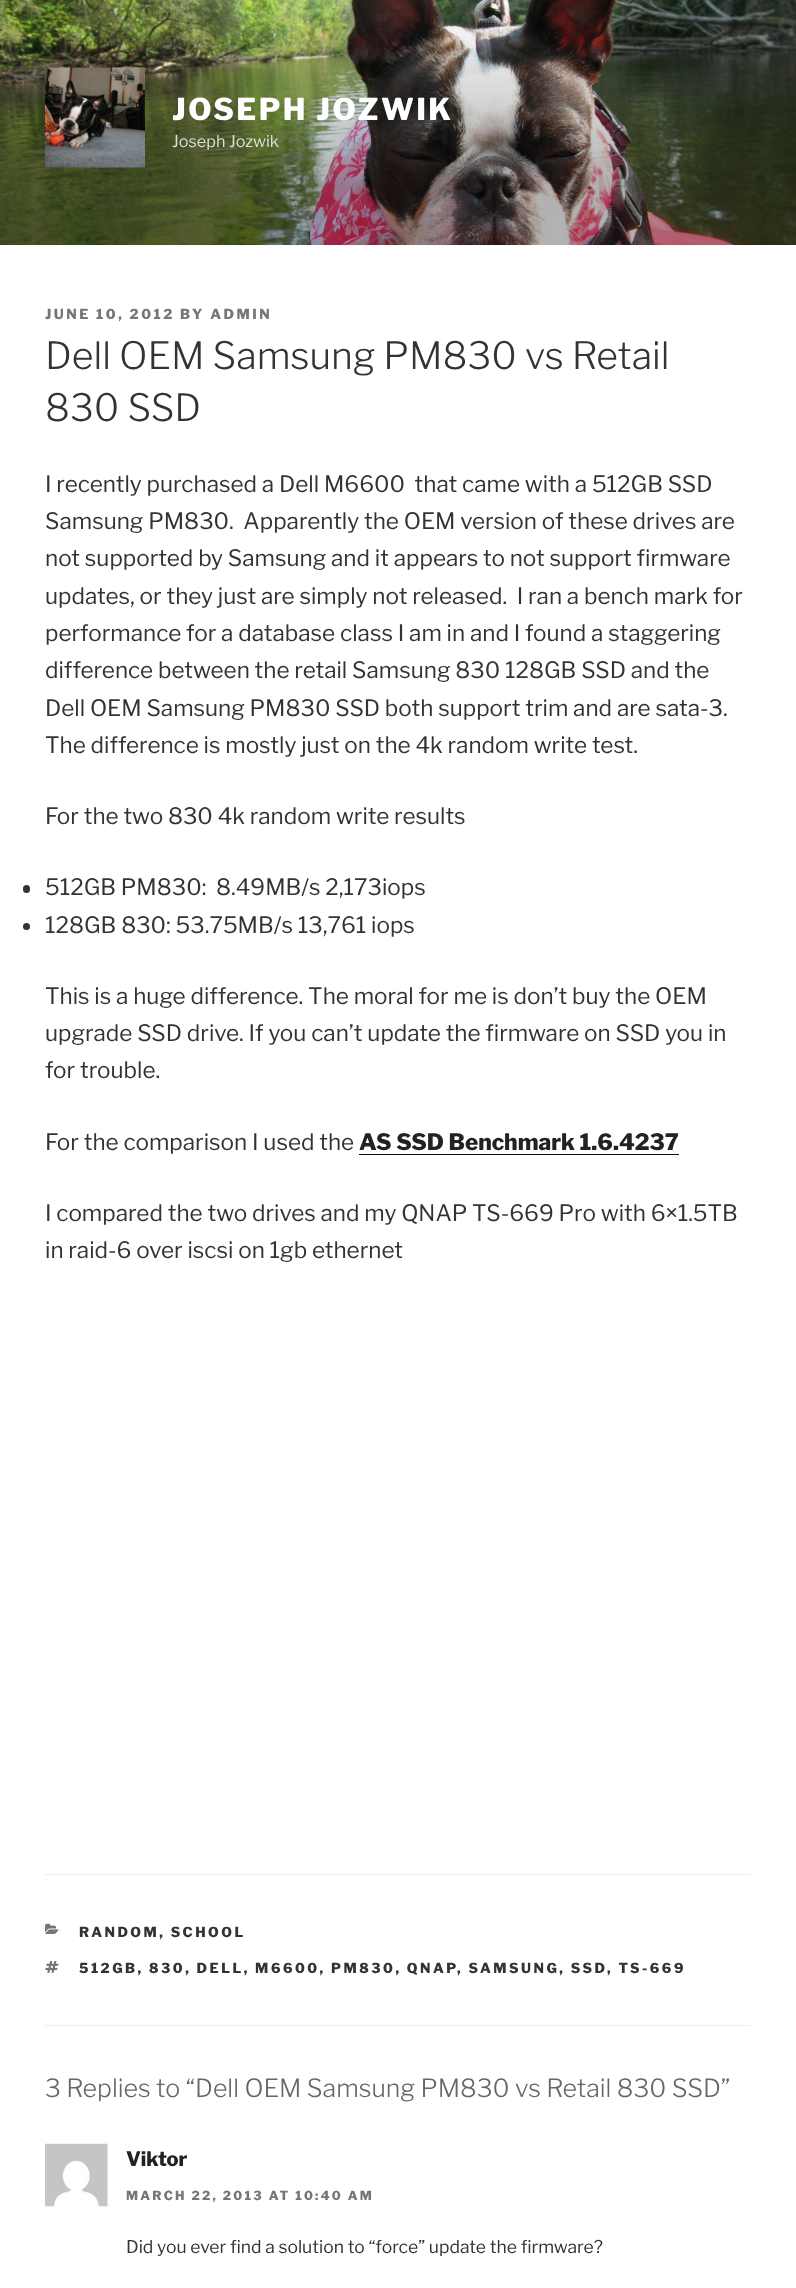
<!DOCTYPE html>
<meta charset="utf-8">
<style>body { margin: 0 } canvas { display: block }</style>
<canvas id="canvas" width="796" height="2288"></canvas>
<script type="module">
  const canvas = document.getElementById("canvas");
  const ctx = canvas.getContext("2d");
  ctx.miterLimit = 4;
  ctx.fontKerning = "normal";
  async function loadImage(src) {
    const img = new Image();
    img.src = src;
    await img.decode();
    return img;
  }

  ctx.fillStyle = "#ffffff";
  ctx.fillRect(0, 0, 796, 2288);
  ctx.fillStyle = "#fafafa";
  ctx.fillRect(0, 245, 796, 1);
  ctx.drawImage(await loadImage("img1.png"), 0, 0, 796, 245);
  ctx.drawImage(await loadImage("img2.png"), 45, 67, 100, 101);
  ctx.letterSpacing = "2.4px";
  ctx.font = "100 30px Libre Franklin";
  ctx.fillStyle = "#ffffff";
  ctx.fillText("JOSEPH JOZWIK", 172, 120);
  ctx.letterSpacing = "0px";
  ctx.font = "100 16.25px 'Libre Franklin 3'";
  ctx.fillStyle = "#dcdfd5";
  ctx.fillText("Joseph Jozwik", 172, 147);
  ctx.letterSpacing = "2.5px";
  ctx.font = "100 13.75px Libre Franklin";
  ctx.fillStyle = "#767676";
  ctx.fillText("JUNE 10, 2012 BY ADMIN", 45, 319);
  ctx.letterSpacing = "0px";
  ctx.font = "100 37.5px 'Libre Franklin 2'";
  ctx.fillStyle = "#333333";
  ctx.fillText("Dell OEM Samsung PM830 vs Retail", 45, 369);
  ctx.fillText("830 SSD", 45, 421);
  ctx.font = "100 22.5px 'Libre Franklin 3'";
  ctx.fillText("I recently purchased a Dell M6600  that came with a 512GB SSD", 45, 492);
  ctx.fillText("Samsung PM830.  Apparently the OEM version of these drives are", 45, 529);
  ctx.fillText("not supported by Samsung and it appears to not support firmware", 45, 566);
  ctx.fillText("updates, or they just are simply not released.  I ran a bench mark for", 45, 604);
  ctx.fillText("performance for a database class I am in and I found a staggering", 45, 641);
  ctx.fillText("difference between the retail Samsung 830 128GB SSD and the", 45, 678);
  ctx.fillText("Dell OEM Samsung PM830 SSD both support trim and are sata-3.", 45, 716);
  ctx.fillText("The difference is mostly just on the 4k random write test.", 45, 753);
  ctx.fillText("For the two 830 4k random write results", 45, 824);
  ctx.beginPath();
  ctx.roundRect(23, 885, 7, 8, 3.5);
  ctx.fill();
  ctx.fillText("512GB PM830:  8.49MB/s 2,173iops", 45, 895);
  ctx.beginPath();
  ctx.arc(26.5, 926.5, 3.5, 0, Math.PI * 2);
  ctx.fill();
  ctx.fillText("128GB 830: 53.75MB/s 13,761 iops", 45, 933);
  ctx.fillText("This is a huge difference. The moral for me is don’t buy the OEM", 45, 1004);
  ctx.fillText("upgrade SSD drive. If you can’t update the firmware on SSD you in", 45, 1041);
  ctx.fillText("for trouble.", 45, 1078);
  ctx.fillText("For the comparison I used the", 45, 1150);
  ctx.font = "100 22.5px Libre Franklin";
  ctx.fillStyle = "#222222";
  ctx.fillText("AS SSD Benchmark 1.6.4237", 359, 1150);
  ctx.fillStyle = "#0f0f0f";
  ctx.fillRect(359, 1154, 320, 1);
  ctx.font = "100 22.5px 'Libre Franklin 3'";
  ctx.fillStyle = "#333333";
  ctx.fillText("I compared the two drives and my QNAP TS-669 Pro with 6×1.5TB", 45, 1221);
  ctx.fillText("in raid-6 over iscsi on 1gb ethernet", 45, 1258);
  ctx.fillStyle = "#eeeeee";
  ctx.fillRect(45, 1874, 706, 1);
  ctx.fillRect(45, 2025, 706, 1);
  ctx.drawImage(await loadImage("img3.png"), 45, 1923, 14, 11);
  ctx.letterSpacing = "2.5px";
  ctx.font = "100 13.75px Libre Franklin";
  ctx.fillStyle = "#333333";
  ctx.fillText("RANDOM, SCHOOL", 79, 1937);
  ctx.drawImage(await loadImage("img4.png"), 45, 1961, 14, 12);
  ctx.fillText("512GB, 830, DELL, M6600, PM830, QNAP", 79, 1973);
  ctx.fillText(", SAMSUNG, SSD", 457, 1973);
  ctx.fillText(", TS-669", 607, 1973);
  ctx.letterSpacing = "0px";
  ctx.font = "100 25px 'Libre Franklin 2'";
  ctx.fillStyle = "#666666";
  ctx.fillText("3 Replies to “Dell OEM Samsung PM830 vs Retail 830 SSD”", 45, 2097);
  ctx.drawImage(await loadImage("img5.png"), 45, 2143, 63, 64);
  ctx.font = "100 20px Libre Franklin";
  ctx.fillStyle = "#222222";
  ctx.fillText("Viktor", 126, 2166);
  ctx.letterSpacing = "2.25px";
  ctx.font = "100 12.5px Libre Franklin";
  ctx.fillStyle = "#767676";
  ctx.fillText("MARCH 22, 2013 AT 10:40 AM", 126, 2200);
  ctx.letterSpacing = "0px";
  ctx.font = "100 17.5px 'Libre Franklin 3'";
  ctx.fillStyle = "#333333";
  ctx.fillText("Did you ever find a solution to “force” update the firmware?", 126, 2253);
</script>
